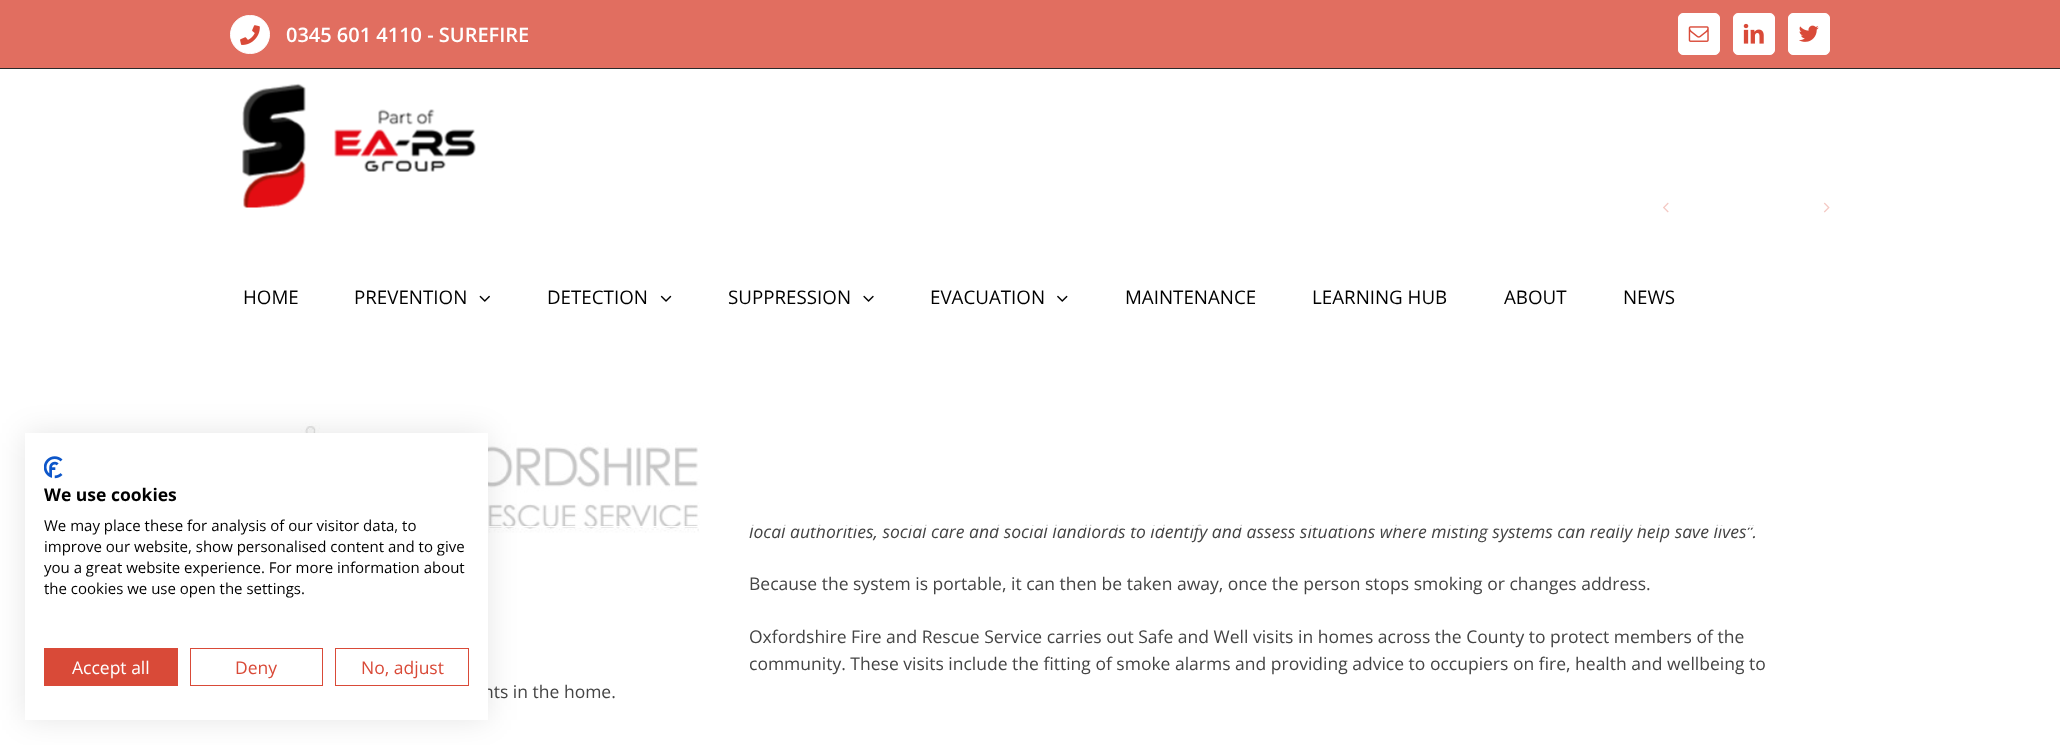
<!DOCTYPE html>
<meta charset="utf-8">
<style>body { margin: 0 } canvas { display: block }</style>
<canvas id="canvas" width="2060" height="745"></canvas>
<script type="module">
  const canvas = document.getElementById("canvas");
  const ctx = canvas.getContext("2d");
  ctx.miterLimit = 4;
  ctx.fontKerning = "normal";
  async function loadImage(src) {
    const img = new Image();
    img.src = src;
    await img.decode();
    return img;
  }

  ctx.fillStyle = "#ffffff";
  ctx.fillRect(0, 0, 2060, 745);
  ctx.fillStyle = "#e16e60";
  ctx.fillRect(0, 0, 2060, 68);
  ctx.fillStyle = "#282a2b";
  ctx.fillRect(0, 68, 2060, 1);
  ctx.fillStyle = "#ffffff";
  ctx.beginPath();
  ctx.roundRect(230.5, 15.5, 39, 38, 19);
  ctx.fill();
  ctx.strokeStyle = "#ffffff";
  ctx.stroke();
  ctx.drawImage(await loadImage("img1.png"), 240, 25, 20, 20);
  ctx.font = "600 20px Open Sans";
  ctx.fillText("0345 601 4110 - SUREFIRE", 286, 42);
  ctx.beginPath();
  ctx.roundRect(1678.5, 13.5, 41, 41, 4.5);
  ctx.fill();
  ctx.stroke();
  ctx.drawImage(await loadImage("img2.png"), 1688, 26, 21, 16);
  ctx.beginPath();
  ctx.roundRect(1733.5, 13.5, 41, 41, 4.5);
  ctx.fill();
  ctx.stroke();
  ctx.drawImage(await loadImage("img3.png"), 1743, 23, 21, 21);
  ctx.beginPath();
  ctx.roundRect(1788.5, 13.5, 41, 41, 4.5);
  ctx.fill();
  ctx.stroke();
  ctx.drawImage(await loadImage("img4.png"), 1799, 25, 20, 17);
  ctx.drawImage(await loadImage("img11.png"), 1663, 202, 6, 11);
  ctx.drawImage(await loadImage("img12.png"), 1823, 202, 7, 11);
  ctx.drawImage(await loadImage("img13.png"), 240, 422, 460, 130);
  ctx.font = "italic 17.5px Open Sans";
  ctx.fillStyle = "#444444";
  ctx.fillText("local authorities, social care and social landlords to identify and assess situations where misting systems can really help save lives”.", 749, 538);
  ctx.fillStyle = "rgba(255, 255, 255, 0.7)";
  ctx.fillRect(240, 202, 1590, 326);
  ctx.fillStyle = "#ffffff";
  ctx.fillRect(265, 526, 1489, 1);
  ctx.drawImage(await loadImage("img5.png"), 242, 83, 64, 125);
  ctx.drawImage(await loadImage("img6.png"), 334, 109, 142, 63);
  ctx.font = "18.75px Open Sans";
  ctx.fillStyle = "#000000";
  ctx.fillText("HOME", 243, 304);
  ctx.fillText("PREVENTION", 354, 304);
  ctx.drawImage(await loadImage("img7.png"), 479, 295, 11, 7);
  ctx.fillText("DETECTION", 547, 304);
  ctx.drawImage(await loadImage("img8.png"), 660, 295, 12, 7);
  ctx.fillText("SUPPRESSION", 728, 304);
  ctx.drawImage(await loadImage("img9.png"), 863, 295, 11, 7);
  ctx.fillText("EVACUATION", 930, 304);
  ctx.drawImage(await loadImage("img10.png"), 1057, 295, 11, 7);
  ctx.fillText("MAINTENANCE", 1125, 304);
  ctx.fillText("LEARNING HUB", 1312, 304);
  ctx.fillText("ABOUT", 1504, 304);
  ctx.fillText("NEWS", 1623, 304);
  ctx.font = "17.5px Open Sans";
  ctx.fillStyle = "#444444";
  ctx.fillText("Because the system is portable, it can then be taken away, once the person stops smoking or changes address.", 749, 590);
  ctx.fillText("Oxfordshire Fire and Rescue Service carries out Safe and Well visits in homes across the County to protect members of the", 749, 643);
  ctx.fillText("community. These visits include the fitting of smoke alarms and providing advice to occupiers on fire, health and wellbeing to", 749, 670);
  ctx.fillText("nts in the home.", 483, 698);
  ctx.fillStyle = "rgba(0, 0, 0, 0.1)";
  ctx.filter = "blur(15px)";
  ctx.beginPath();
  ctx.rect(25, 433, 463, 287);
  ctx.fill();
  ctx.filter = "none";
  ctx.fillStyle = "#ffffff";
  ctx.fillRect(25, 433, 463, 287);
  ctx.drawImage(await loadImage("img14.png"), 44, 456, 19, 23);
  ctx.font = "bold 17.5px Open Sans";
  ctx.fillStyle = "#000000";
  ctx.fillText("We use cookies", 44, 501);
  ctx.font = "15px Open Sans";
  ctx.fillText("We may place these for analysis of our visitor data, to", 44, 531);
  ctx.fillText("improve our website, show personalised content and to give", 44, 552);
  ctx.fillText("you a great website experience. For more information about", 44, 573);
  ctx.fillText("the cookies we use open the settings.", 44, 594);
  ctx.fillStyle = "#d94a38";
  ctx.fillRect(44, 648, 134, 38);
  ctx.font = "17.5px Open Sans";
  ctx.fillStyle = "#ffffff";
  ctx.fillText("Accept all", 72, 674);
  ctx.strokeStyle = "#d94a38";
  ctx.strokeRect(190.5, 648.5, 132, 37);
  ctx.fillStyle = "#d94a38";
  ctx.fillText("Deny", 235, 674);
  ctx.strokeRect(335.5, 648.5, 133, 37);
  ctx.fillText("No, adjust", 361, 674);
</script>
